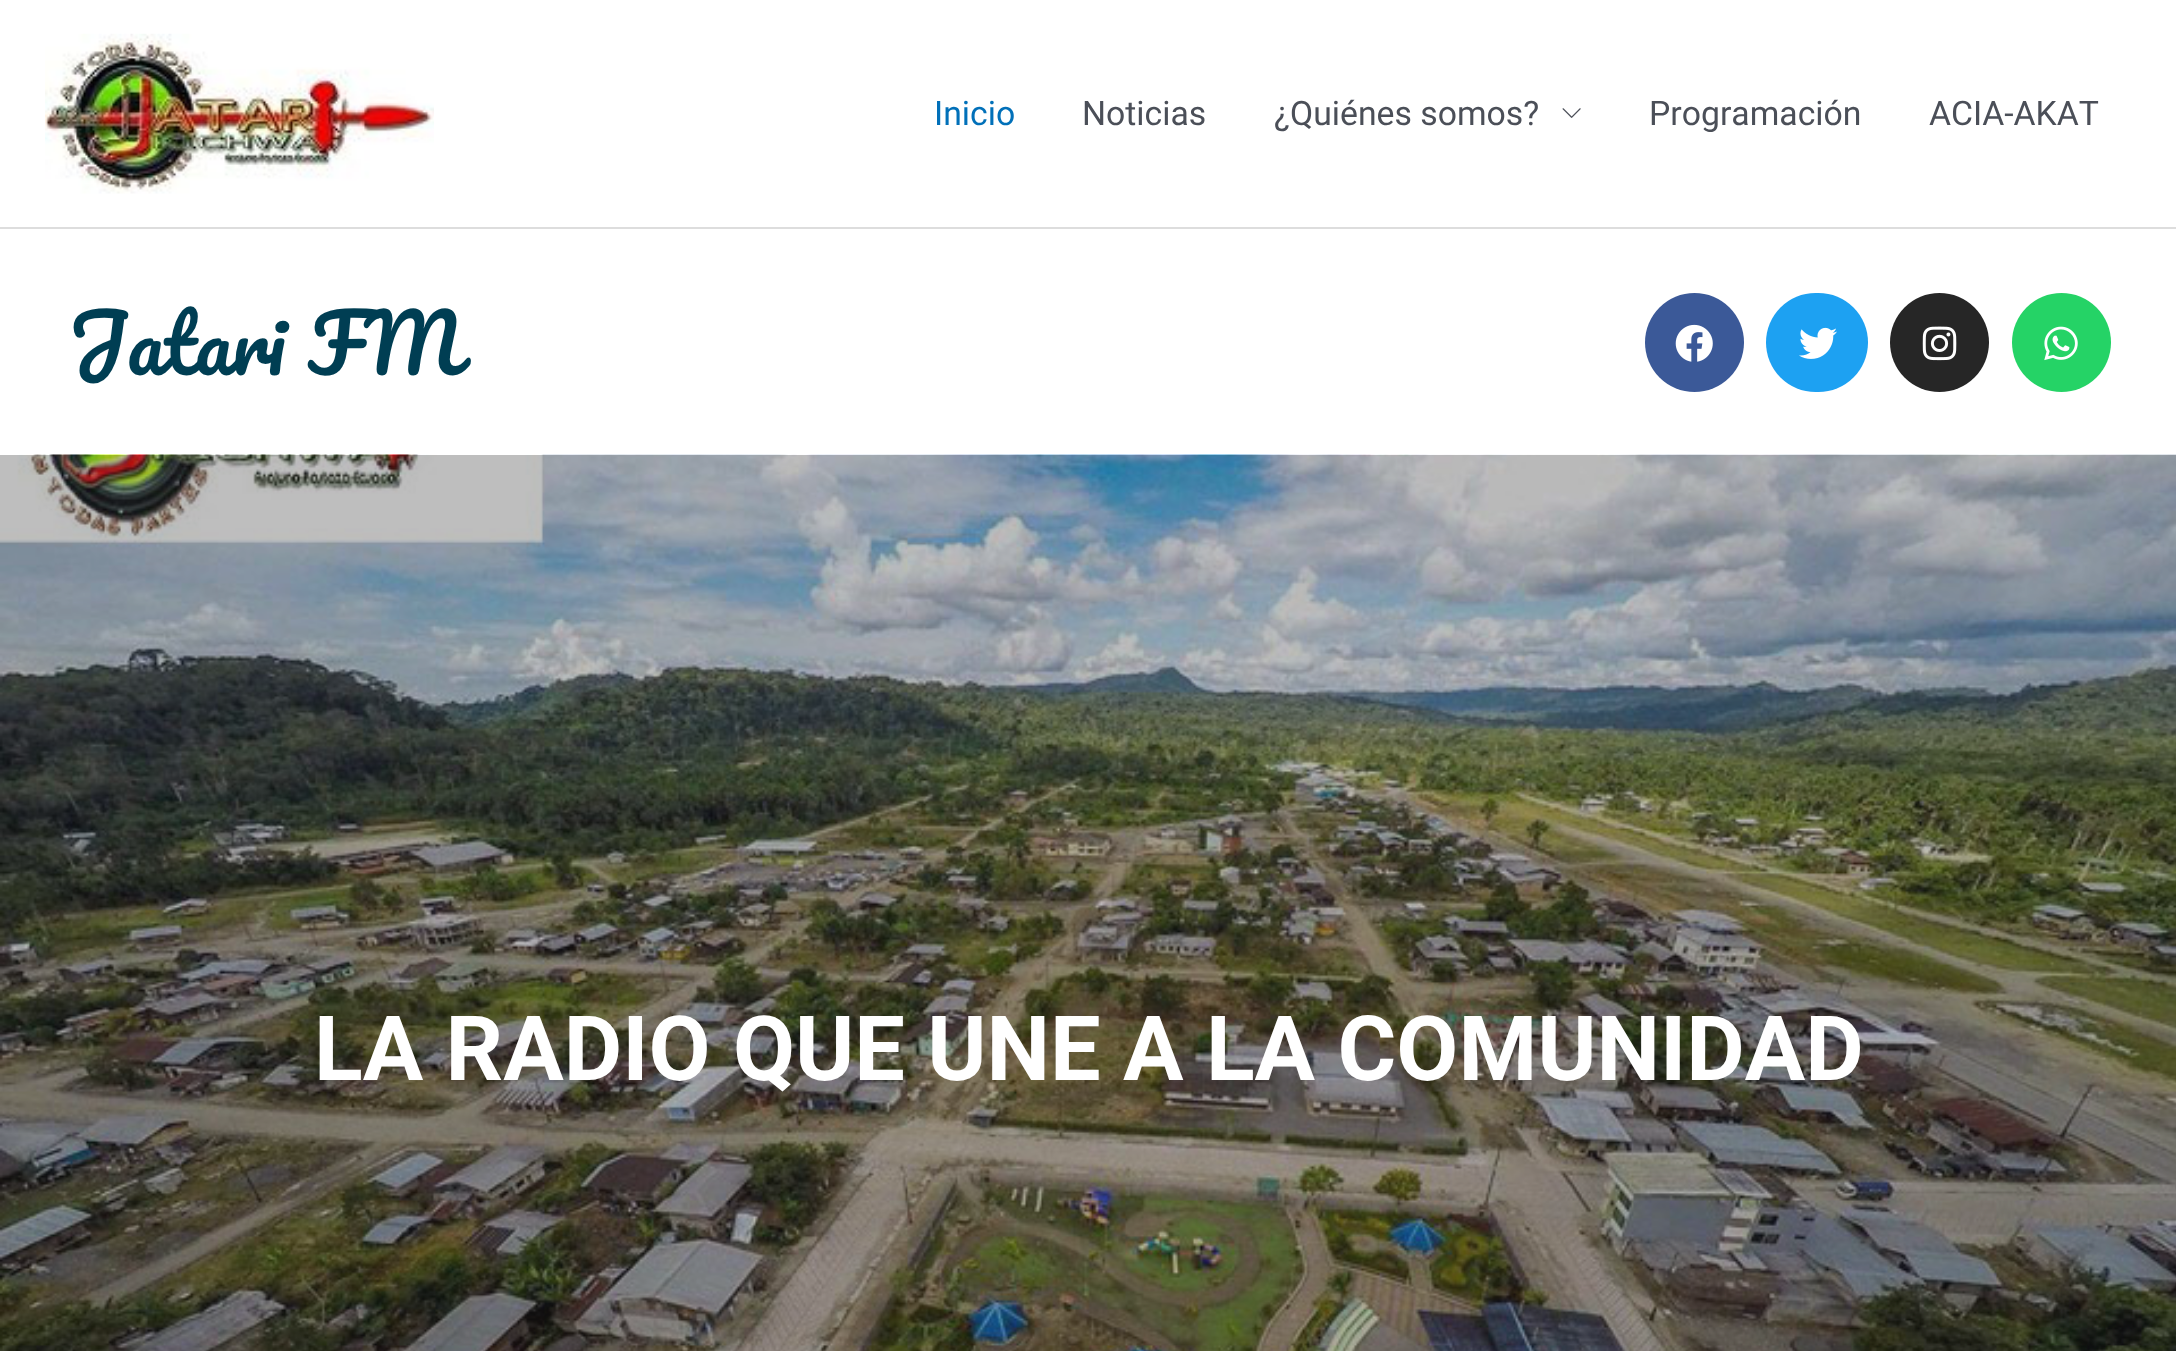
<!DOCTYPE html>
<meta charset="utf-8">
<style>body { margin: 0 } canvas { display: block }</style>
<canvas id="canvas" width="2176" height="1351"></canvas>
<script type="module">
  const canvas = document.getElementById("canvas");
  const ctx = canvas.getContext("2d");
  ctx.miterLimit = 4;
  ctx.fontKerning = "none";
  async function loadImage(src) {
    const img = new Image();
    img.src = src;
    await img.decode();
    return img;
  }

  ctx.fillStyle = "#ffffff";
  ctx.fillRect(0, 0, 2176, 1351);
  ctx.fillStyle = "#dddddd";
  ctx.fillRect(0, 227, 2176, 2);
  ctx.drawImage(await loadImage("img1.png"), 45, 33, 389, 161);
  ctx.font = "33.75px Roboto";
  ctx.fillStyle = "#0170b9";
  ctx.fillText("Inicio", 934, 125);
  ctx.fillStyle = "#4b4f58";
  ctx.fillText("Noticias", 1082, 125);
  ctx.fillText("¿Quiénes somos?", 1274, 125);
  ctx.drawImage(await loadImage("img2.png"), 1562, 108, 19, 10);
  ctx.fillText("Programación", 1649, 125);
  ctx.fillText("ACIA-AKAT", 1929, 125);
  ctx.wordSpacing = "2px";
  ctx.font = "78.75px Pacifico";
  ctx.fillStyle = "#003e53";
  ctx.fillText("Jatari FM", 68, 375);
  ctx.fillStyle = "#3b5998";
  ctx.beginPath();
  ctx.arc(1694.5, 342.5, 49.5, 0, Math.PI * 2);
  ctx.fill();
  ctx.drawImage(await loadImage("img3.png"), 1675, 324, 38, 38);
  ctx.fillStyle = "#1da1f2";
  ctx.beginPath();
  ctx.roundRect(1766, 293, 102, 99, 49.5);
  ctx.fill();
  ctx.drawImage(await loadImage("img4.png"), 1799, 327, 38, 32);
  ctx.fillStyle = "#262626";
  ctx.beginPath();
  ctx.arc(1939.5, 342.5, 49.5, 0, Math.PI * 2);
  ctx.fill();
  ctx.drawImage(await loadImage("img5.png"), 1922, 326, 35, 35);
  ctx.fillStyle = "#25d366";
  ctx.beginPath();
  ctx.arc(2061.5, 342.5, 49.5, 0, Math.PI * 2);
  ctx.fill();
  ctx.drawImage(await loadImage("img6.png"), 2044, 326, 34, 35);
  ctx.drawImage(await loadImage("img7.png"), 0, 454, 2176, 897);
  ctx.wordSpacing = "0px";
  ctx.font = "bold 90px Roboto";
  ctx.fillStyle = "#ffffff";
  ctx.fillText("LA RADIO QUE UNE A LA COMUNIDAD", 314, 1080);
</script>
